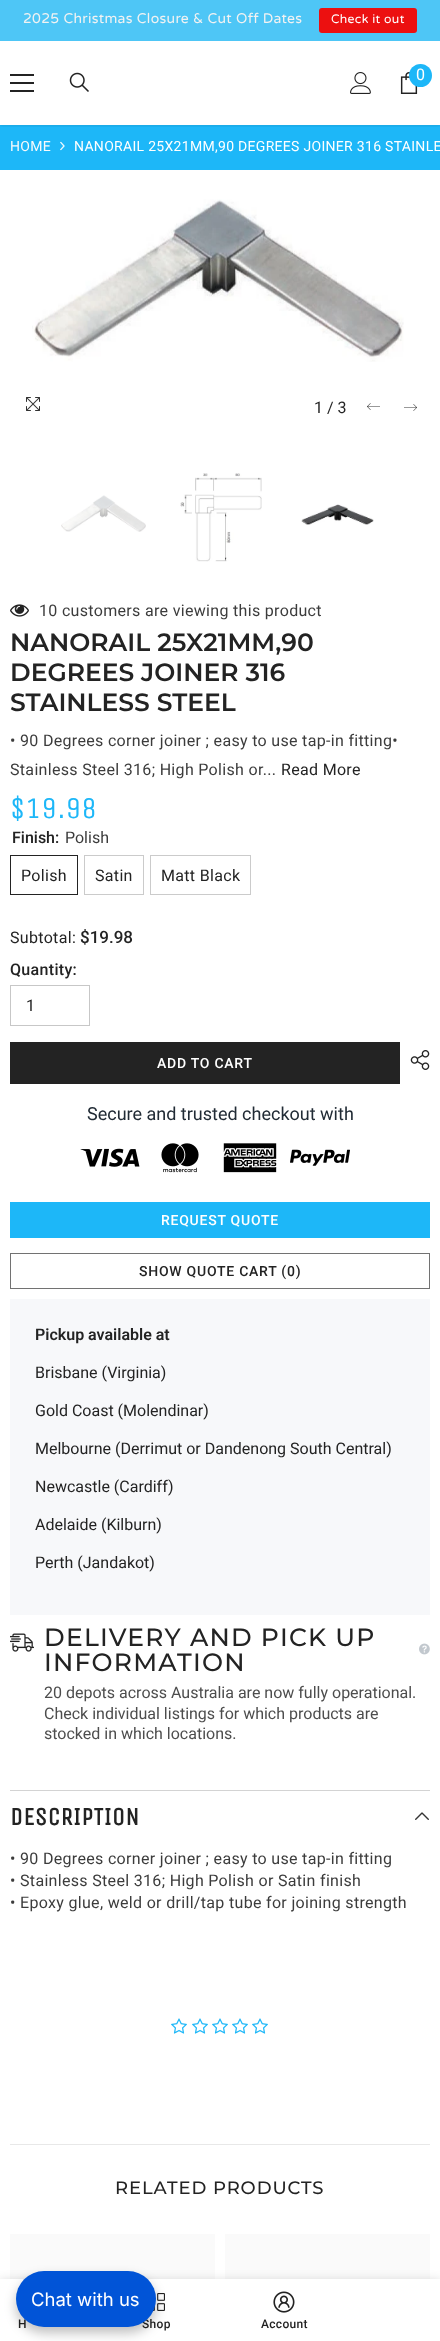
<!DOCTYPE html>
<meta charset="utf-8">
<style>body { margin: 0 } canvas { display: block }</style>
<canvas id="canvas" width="440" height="2341"></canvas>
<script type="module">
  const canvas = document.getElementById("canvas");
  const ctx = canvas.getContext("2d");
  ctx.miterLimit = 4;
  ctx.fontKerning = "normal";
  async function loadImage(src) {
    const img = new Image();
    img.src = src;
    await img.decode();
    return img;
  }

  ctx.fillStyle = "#ffffff";
  ctx.fillRect(0, 0, 440, 2341);
  ctx.fillStyle = "#1db7f8";
  ctx.fillRect(0, 125, 440, 45);
  ctx.save();
  ctx.beginPath();
  ctx.rect(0, 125, 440, 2);
  ctx.clip();
  ctx.fillStyle = "rgba(0, 0, 0, 0.1)";
  ctx.filter = "blur(1.5px)";
  ctx.beginPath();
  ctx.rect(0, 41, 440, 85);
  ctx.fill();
  ctx.filter = "none";
  ctx.restore();
  ctx.fillStyle = "rgba(5, 175, 242, 0.71)";
  ctx.fillRect(0, 0, 440, 41);
  ctx.letterSpacing = "0.32px";
  ctx.font = "14px Varela Round";
  ctx.fillStyle = "#f2f2f2";
  ctx.fillText("2025 Christmas Closure & Cut Off Dates", 23, 23);
  ctx.fillStyle = "#ec1010";
  ctx.beginPath();
  ctx.roundRect(319, 8, 98, 25, 3);
  ctx.fill();
  ctx.font = "12.25px Varela Round";
  ctx.fillStyle = "#ffffff";
  ctx.fillText("Check it out", 331, 23);
  ctx.fillStyle = "#232323";
  ctx.fillRect(10, 82, 24, 2);
  ctx.fillRect(10, 74, 24, 2);
  ctx.fillRect(10, 90, 24, 2);
  ctx.drawImage(await loadImage("img1.png"), 69, 72, 20, 20);
  ctx.drawImage(await loadImage("img2.png"), 350, 72, 21, 22);
  ctx.drawImage(await loadImage("img3.png"), 400, 72, 18, 22);
  ctx.fillStyle = "#1db7f8";
  ctx.beginPath();
  ctx.arc(420.5, 75.5, 11.5, 0, Math.PI * 2);
  ctx.fill();
  ctx.letterSpacing = "0px";
  ctx.font = "16px Roboto";
  ctx.fillStyle = "#ffffff";
  ctx.fillText("0", 416, 80);
  ctx.letterSpacing = "0.3px";
  ctx.font = "14px Roboto";
  ctx.fillStyle = "#f9fafb";
  ctx.fillText("HOME", 10, 151);
  ctx.drawImage(await loadImage("img4.png"), 60, 141, 5, 10);
  ctx.fillStyle = "#ffffff";
  ctx.fillText("NANORAIL 25X21MM,90 DEGREES JOINER 316 STAINLE", 74, 151);
  ctx.drawImage(await loadImage("img5.png"), 26, 397, 14, 14);
  ctx.drawImage(await loadImage("img6.png"), 32, 199, 372, 163);
  ctx.letterSpacing = "0px";
  ctx.font = "16px Roboto";
  ctx.fillStyle = "#232323";
  ctx.fillText("1 / 3", 314, 413);
  ctx.drawImage(await loadImage("img7.png"), 367, 403, 13, 7);
  ctx.drawImage(await loadImage("img8.png"), 404, 404, 13, 7);
  ctx.drawImage(await loadImage("img9.png"), 61, 495, 85, 37);
  ctx.drawImage(await loadImage("img10.png"), 180, 473, 82, 89);
  ctx.drawImage(await loadImage("img11.png"), 301, 504, 73, 21);
  ctx.drawImage(await loadImage("img12.png"), 10, 604, 19, 13);
  ctx.letterSpacing = "0.32px";
  ctx.fillStyle = "#3c3c3c";
  ctx.fillText("10 customers are viewing this product", 39, 616);
  ctx.letterSpacing = "0px";
  ctx.font = "600 25px Montserrat";
  ctx.fillStyle = "#232323";
  ctx.fillText("NANORAIL 25X21MM,90", 10, 651);
  ctx.fillText("DEGREES JOINER 316", 10, 681);
  ctx.fillText("STAINLESS STEEL", 10, 711);
  ctx.letterSpacing = "0.32px";
  ctx.font = "16px Roboto";
  ctx.fillStyle = "#3c3c3c";
  ctx.fillText("• 90 Degrees corner joiner ; easy to use tap-in fitting•", 10, 746);
  ctx.fillText("Stainless Steel 316; High Polish or...", 10, 775);
  ctx.fillStyle = "#232323";
  ctx.fillText("Read More", 281, 775);
  ctx.letterSpacing = "0.5px";
  ctx.font = "30px Unica One";
  ctx.fillStyle = "#1db7f8";
  ctx.fillText("$19.98", 10, 818);
  ctx.letterSpacing = "0px";
  ctx.font = "500 16px Roboto";
  ctx.fillStyle = "#232323";
  ctx.fillText("Finish:", 12, 843);
  ctx.font = "16px Roboto";
  ctx.fillStyle = "#3c3c3c";
  ctx.fillText("Polish", 65, 843);
  ctx.strokeStyle = "#232323";
  ctx.strokeRect(10.5, 855.5, 67, 39);
  ctx.letterSpacing = "0.32px";
  ctx.fillStyle = "#232323";
  ctx.fillText("Polish", 21, 881);
  ctx.strokeStyle = "#cbcbcb";
  ctx.strokeRect(84.5, 855.5, 59, 39);
  ctx.fillText("Satin", 95, 881);
  ctx.strokeRect(150.5, 855.5, 100, 39);
  ctx.fillText("Matt Black", 161, 881);
  ctx.fillText("Subtotal:", 10, 943);
  ctx.letterSpacing = "0px";
  ctx.font = "500 17px Roboto";
  ctx.fillText("$19.98", 80, 943);
  ctx.letterSpacing = "0.32px";
  ctx.font = "500 16px Roboto";
  ctx.fillText("Quantity:", 10, 975);
  ctx.strokeStyle = "#c7c7c7";
  ctx.strokeRect(10.5, 985.5, 79, 40);
  ctx.font = "16px Roboto";
  ctx.fillText("1", 26, 1011);
  ctx.fillRect(10, 1042, 390, 42);
  ctx.letterSpacing = "0.75px";
  ctx.font = "500 14px Roboto";
  ctx.fillStyle = "#ffffff";
  ctx.fillText("ADD TO CART", 157, 1068);
  ctx.drawImage(await loadImage("img13.png"), 410, 1050, 20, 20);
  ctx.letterSpacing = "0px";
  ctx.font = "18px Roboto";
  ctx.fillStyle = "#212b35";
  ctx.fillText("Secure and trusted checkout with", 87, 1120);
  ctx.drawImage(await loadImage("img14.png"), 80, 1148, 60, 19);
  ctx.drawImage(await loadImage("img15.png"), 161, 1143, 38, 30);
  ctx.drawImage(await loadImage("img16.png"), 223, 1143, 54, 30);
  ctx.drawImage(await loadImage("img17.png"), 290, 1149, 60, 17);
  ctx.fillStyle = "#1db7f8";
  ctx.fillRect(10, 1202, 420, 36);
  ctx.letterSpacing = "0.75px";
  ctx.font = "500 14px Roboto";
  ctx.fillStyle = "#ffffff";
  ctx.fillText("REQUEST QUOTE", 161, 1225);
  ctx.strokeStyle = "#727272";
  ctx.strokeRect(10.5, 1253.5, 419, 35);
  ctx.fillStyle = "#232323";
  ctx.fillText("SHOW QUOTE CART (0)", 139, 1276);
  ctx.fillStyle = "#f7f8fa";
  ctx.fillRect(10, 1299, 420, 316);
  ctx.letterSpacing = "0px";
  ctx.font = "600 16px Roboto";
  ctx.fillStyle = "#232323";
  ctx.fillText("Pickup available at", 35, 1340);
  ctx.font = "16px Roboto";
  ctx.fillText("Brisbane (Virginia)", 35, 1378);
  ctx.fillText("Gold Coast (Molendinar)", 35, 1416);
  ctx.fillText("Melbourne (Derrimut or Dandenong South Central)", 35, 1454);
  ctx.fillText("Newcastle (Cardiff)", 35, 1492);
  ctx.fillText("Adelaide (Kilburn)", 35, 1530);
  ctx.fillText("Perth (Jandakot)", 35, 1568);
  ctx.drawImage(await loadImage("img18.png"), 10, 1633, 24, 19);
  ctx.letterSpacing = "1.25px";
  ctx.font = "500 25px Montserrat";
  ctx.fillText("DELIVERY AND PICK UP", 44, 1646);
  ctx.fillText("INFORMATION", 44, 1671);
  ctx.drawImage(await loadImage("img19.png"), 419, 1643, 11, 12);
  ctx.letterSpacing = "0px";
  ctx.font = "16px Roboto";
  ctx.fillStyle = "#4d4d4d";
  ctx.fillText("20 depots across Australia are now fully operational.", 44, 1698);
  ctx.fillText("Check individual listings for which products are", 44, 1719);
  ctx.fillText("stocked in which locations.", 44, 1739);
  ctx.fillStyle = "#d3d3d3";
  ctx.fillRect(10, 1790, 420, 1);
  ctx.letterSpacing = "0.5px";
  ctx.font = "bold 25px Unica One";
  ctx.fillStyle = "#232323";
  ctx.fillText("DESCRIPTION", 10, 1825);
  ctx.drawImage(await loadImage("img20.png"), 415, 1812, 14, 8);
  ctx.letterSpacing = "0.32px";
  ctx.font = "16px Roboto";
  ctx.fillStyle = "#3c3c3c";
  ctx.fillText("• 90 Degrees corner joiner ; easy to use tap-in fitting", 10, 1864);
  ctx.fillText("• Stainless Steel 316; High Polish or Satin finish", 10, 1886);
  ctx.fillText("• Epoxy glue, weld or drill/tap tube for joining strength", 10, 1908);
  ctx.drawImage(await loadImage("img21.png"), 171, 2018, 16, 16);
  ctx.drawImage(await loadImage("img21.png"), 192, 2018, 16, 16);
  ctx.drawImage(await loadImage("img21.png"), 212, 2018, 16, 16);
  ctx.drawImage(await loadImage("img21.png"), 232, 2018, 16, 16);
  ctx.drawImage(await loadImage("img21.png"), 252, 2018, 16, 16);
  ctx.fillStyle = "#e8e8e8";
  ctx.fillRect(10, 2144, 420, 1);
  ctx.letterSpacing = "0.9px";
  ctx.font = "500 18px Montserrat";
  ctx.fillStyle = "#232323";
  ctx.fillText("RELATED PRODUCTS", 115, 2194);
  ctx.fillStyle = "#fafafa";
  ctx.fillRect(10, 2234, 205, 45);
  ctx.fillRect(225, 2234, 205, 45);
  ctx.fillStyle = "rgba(0, 0, 0, 0.12)";
  ctx.filter = "blur(4.5px)";
  ctx.beginPath();
  ctx.rect(0, 2279, 440, 62);
  ctx.fill();
  ctx.filter = "none";
  ctx.fillStyle = "#ffffff";
  ctx.fillRect(0, 2279, 440, 62);
  ctx.letterSpacing = "0.32px";
  ctx.font = "500 12px Roboto";
  ctx.fillStyle = "#232323";
  ctx.fillText("H", 18, 2328);
  ctx.drawImage(await loadImage("img22.png"), 153, 2293, 12, 18);
  ctx.fillText("Shop", 142, 2328);
  ctx.drawImage(await loadImage("img23.png"), 273, 2291, 22, 22);
  ctx.fillText("Account", 261, 2328);
  ctx.fillStyle = "rgba(0, 0, 0, 0.25)";
  ctx.filter = "blur(6px)";
  ctx.beginPath();
  ctx.roundRect(16, 2277, 140, 56, 28);
  ctx.fill();
  ctx.filter = "none";
  ctx.fillStyle = "#0154d7";
  ctx.beginPath();
  ctx.roundRect(16, 2271, 140, 56, 28);
  ctx.fill();
  ctx.letterSpacing = "0px";
  ctx.font = "18.5px Inter";
  ctx.fillStyle = "#ffffff";
  ctx.fillText("Chat with us", 31, 2306);
</script>
